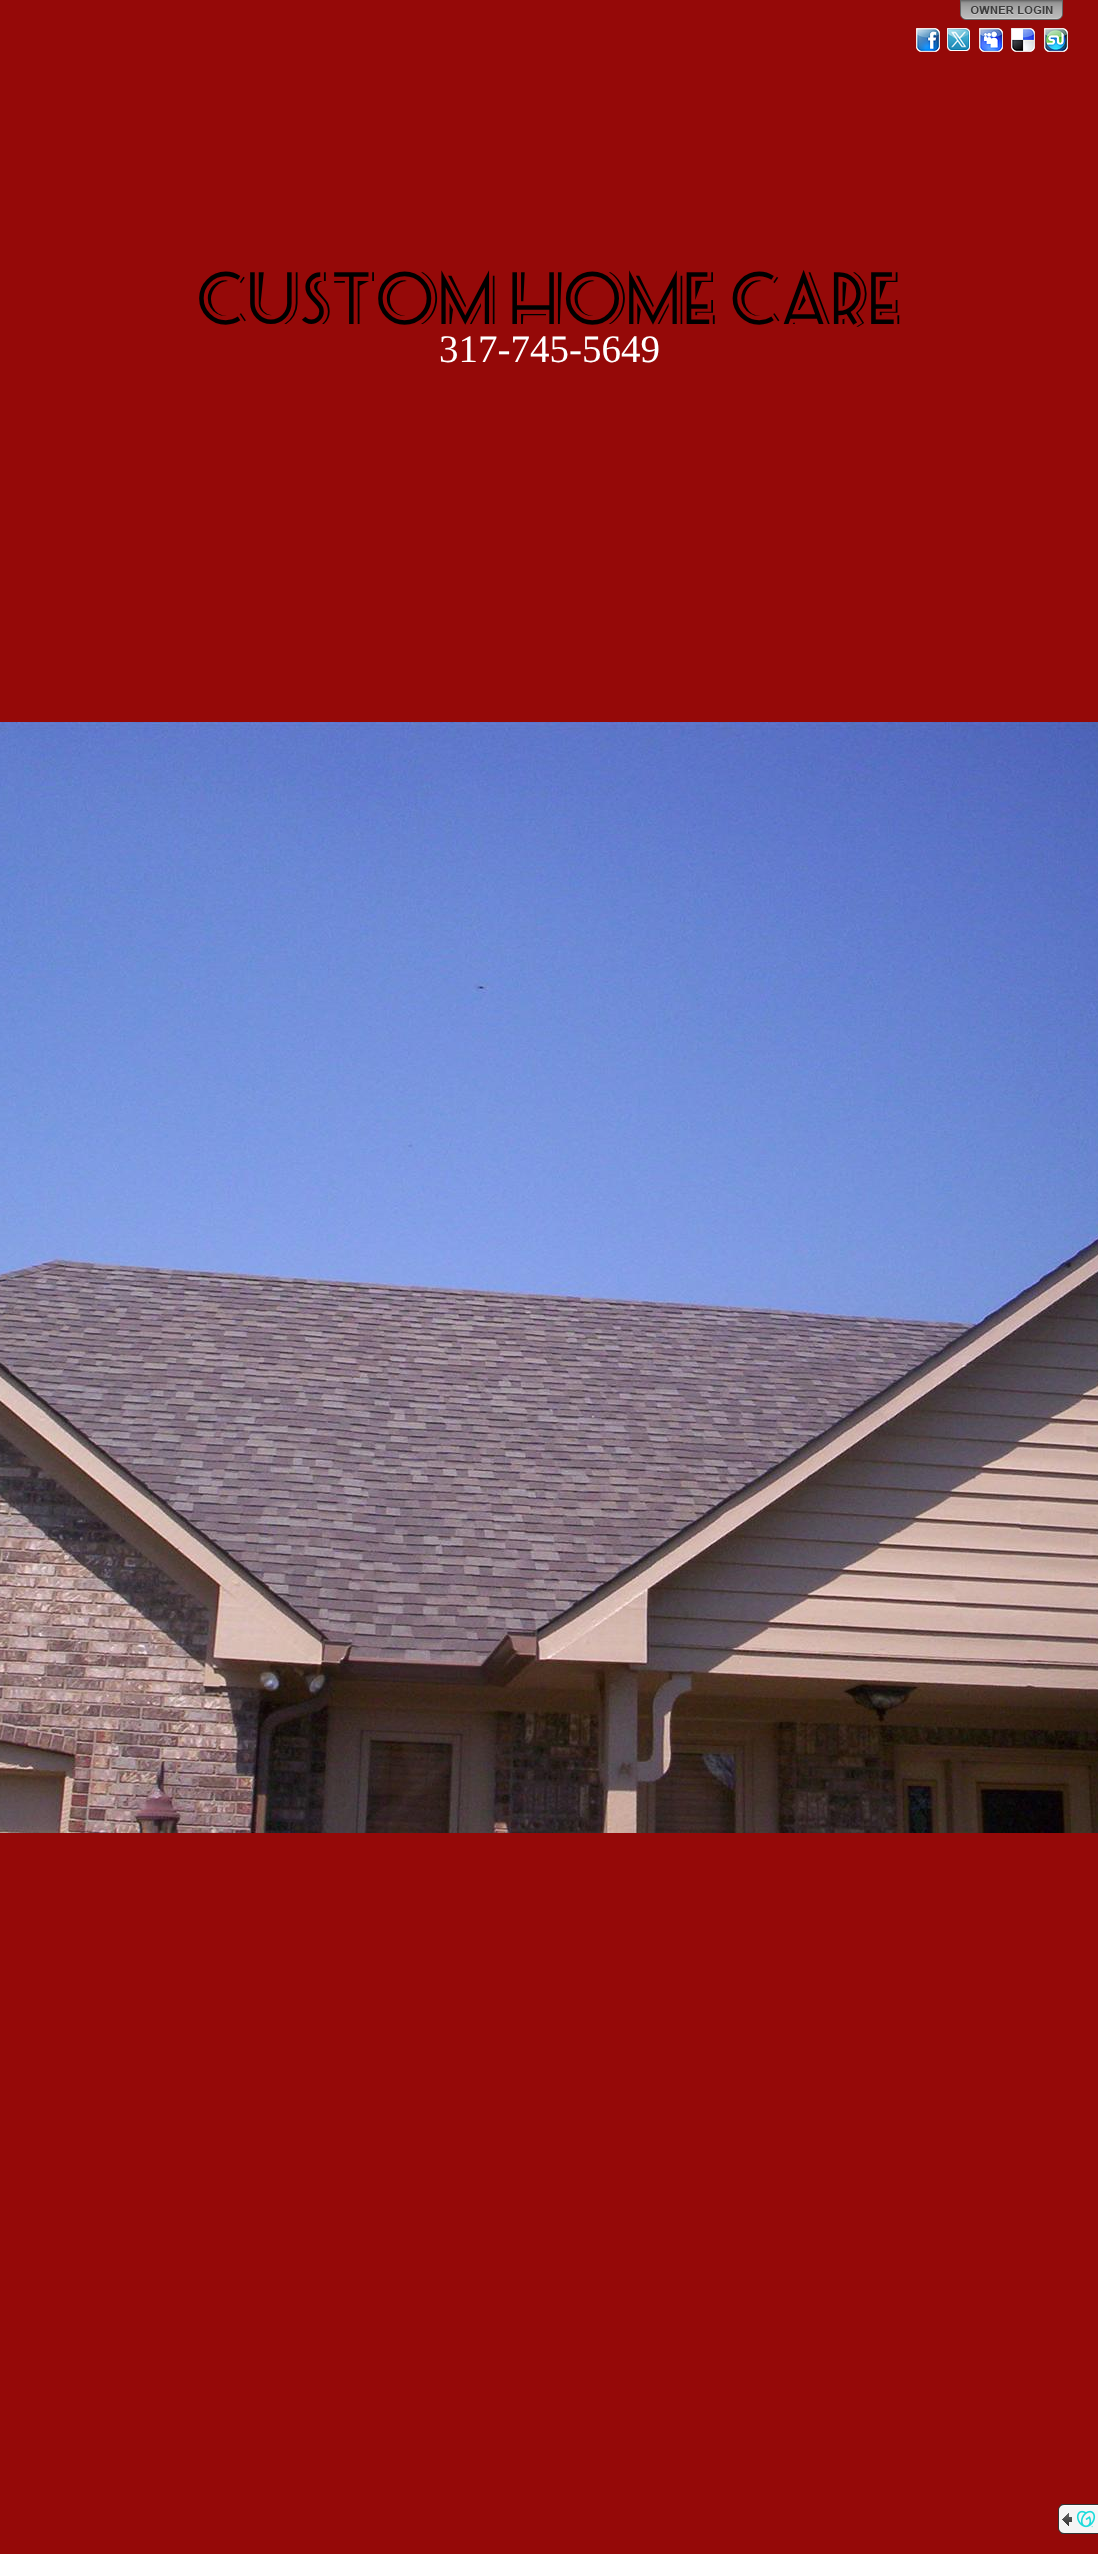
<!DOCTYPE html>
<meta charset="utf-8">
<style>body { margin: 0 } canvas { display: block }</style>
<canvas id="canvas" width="1098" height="2554"></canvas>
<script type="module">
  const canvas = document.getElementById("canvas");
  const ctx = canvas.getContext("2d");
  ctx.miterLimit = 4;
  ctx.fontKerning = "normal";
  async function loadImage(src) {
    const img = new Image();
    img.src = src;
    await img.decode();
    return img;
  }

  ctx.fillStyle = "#950908";
  ctx.fillRect(0, 0, 1098, 2554);
  ctx.drawImage(await loadImage("img1.png"), 960, 0, 103, 20);
  ctx.drawImage(await loadImage("img2.png"), 916, 28, 24, 24);
  ctx.drawImage(await loadImage("img3.png"), 947, 28, 23, 23);
  ctx.drawImage(await loadImage("img4.png"), 979, 28, 24, 24);
  ctx.drawImage(await loadImage("img5.png"), 1011, 28, 24, 24);
  ctx.drawImage(await loadImage("img6.png"), 1044, 28, 24, 24);
  ctx.font = "60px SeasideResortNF";
  ctx.fillStyle = "#000000";
  ctx.fillText("CUSTOM HOME CARE", 197, 324);
  ctx.font = "39px Liberation Serif";
  ctx.fillStyle = "#ffffff";
  ctx.fillText("317-745-5649", 439, 362);
  ctx.drawImage(await loadImage("img7.png"), 1061, 2504, 37, 30);
  ctx.drawImage(await loadImage("img8.png"), 1058, 2505, 14, 28);
  ctx.drawImage(await loadImage("img9.png"), 1076, 2510, 20, 18);
  ctx.drawImage(await loadImage("img10.png"), 0, 722, 1098, 1111);
</script>
